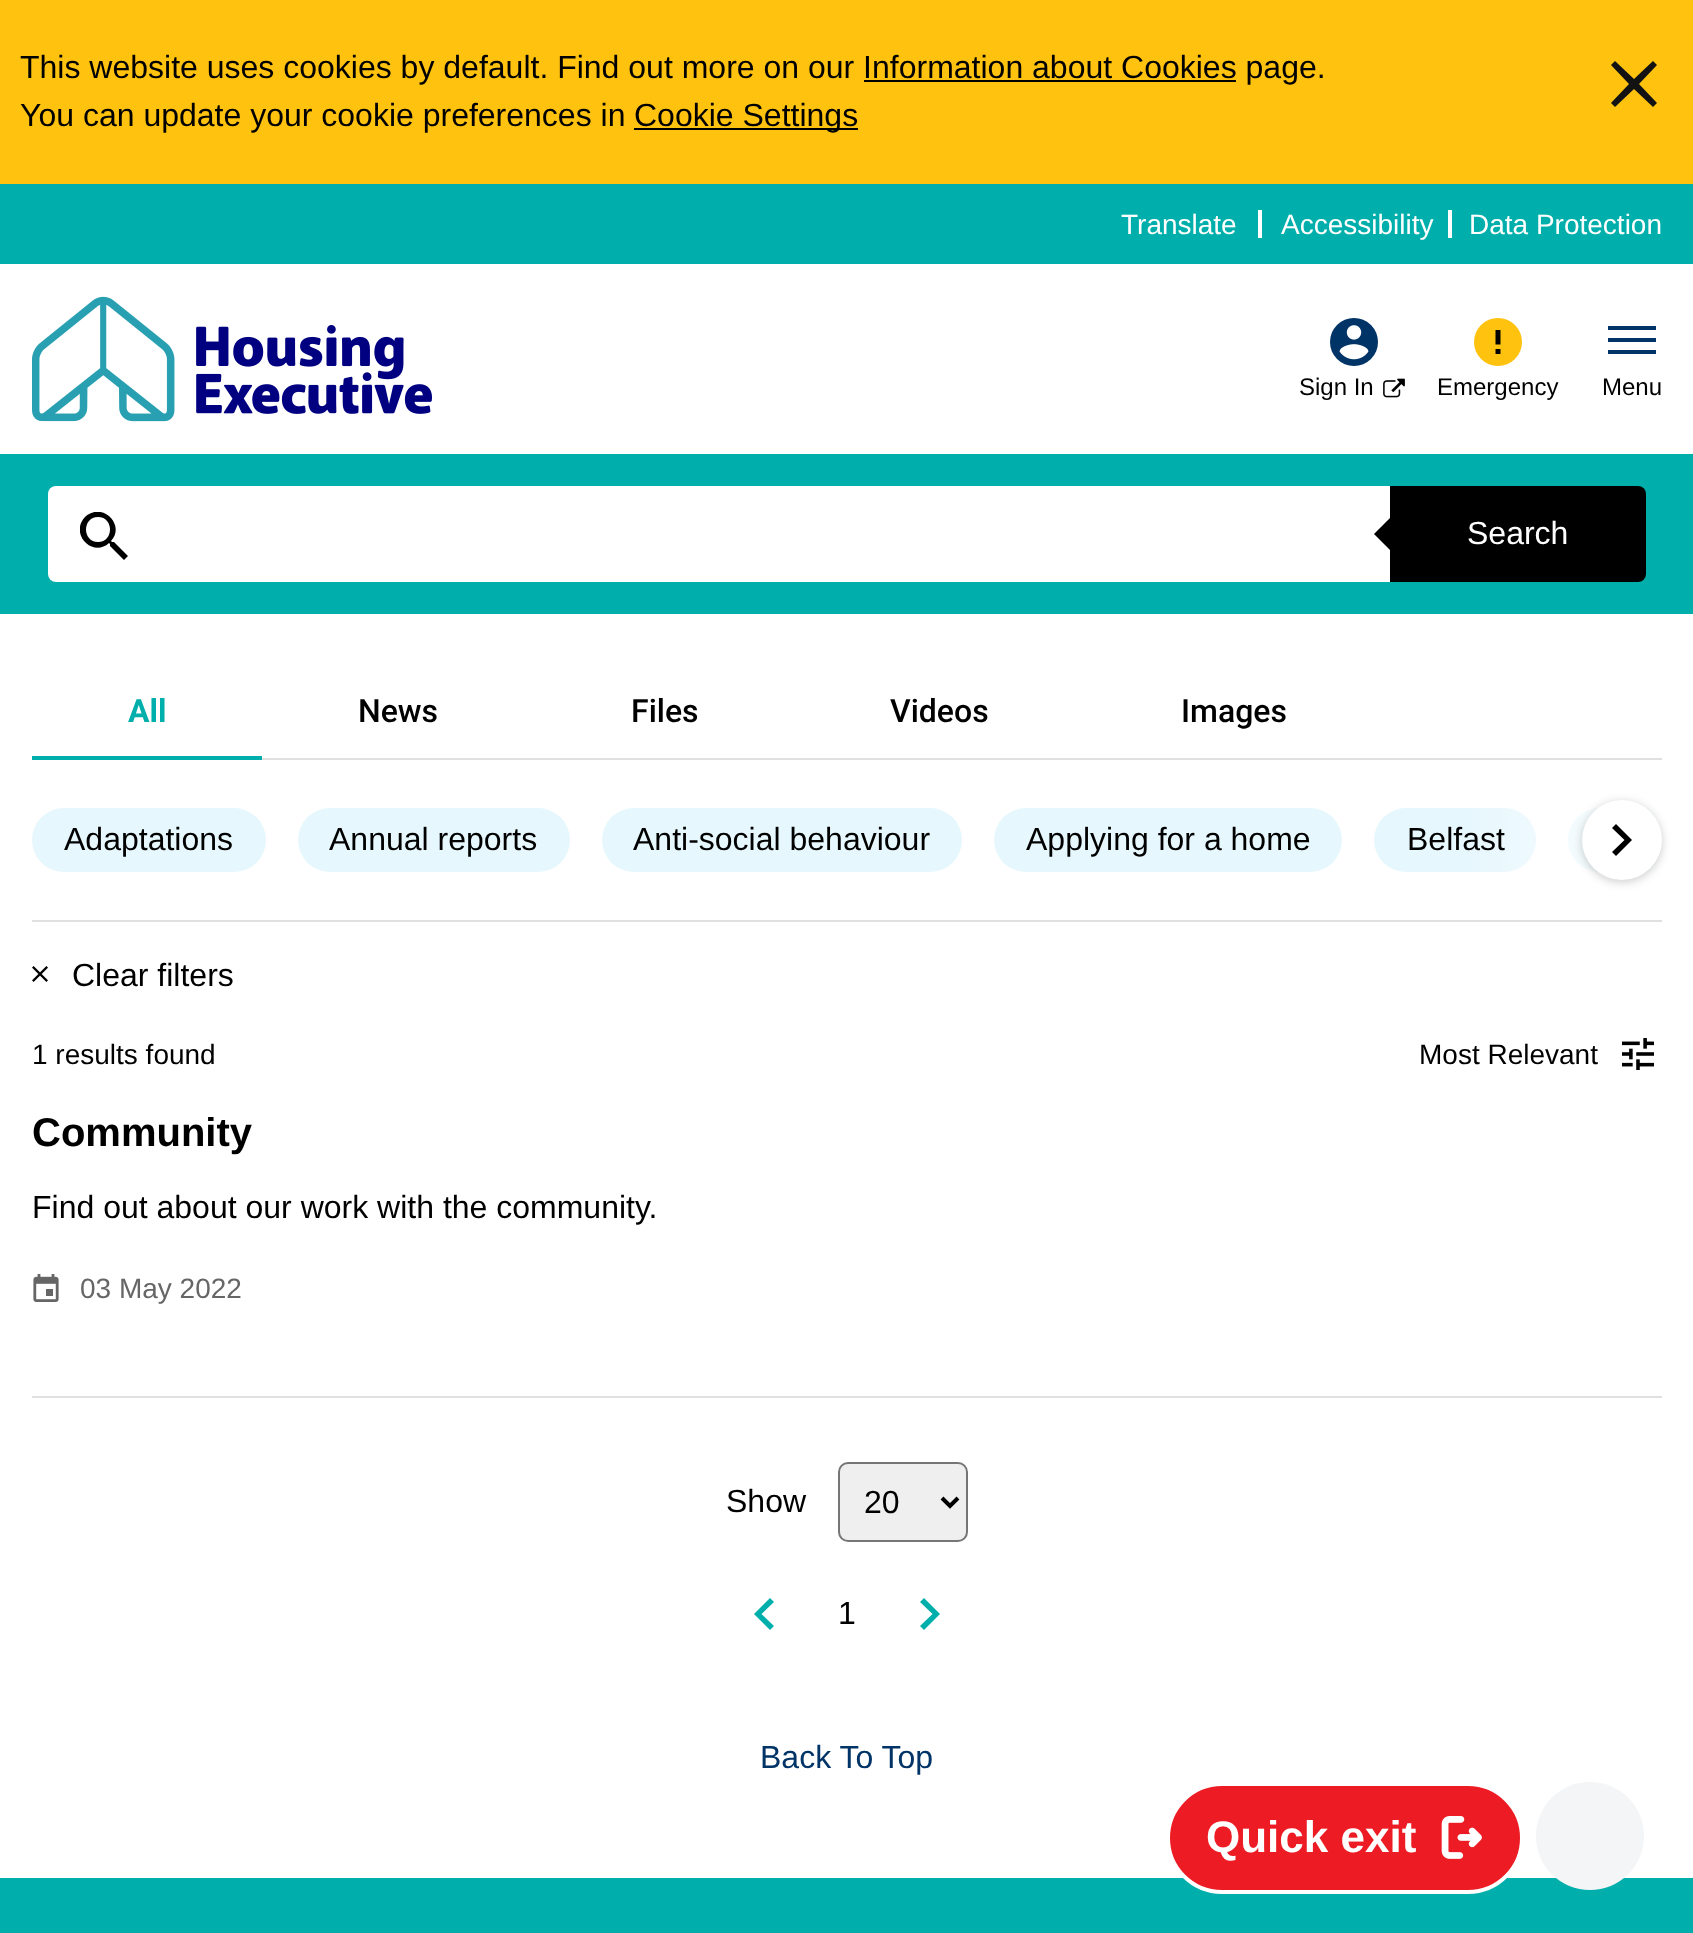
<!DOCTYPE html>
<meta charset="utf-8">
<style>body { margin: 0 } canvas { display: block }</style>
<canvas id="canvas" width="1693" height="1933"></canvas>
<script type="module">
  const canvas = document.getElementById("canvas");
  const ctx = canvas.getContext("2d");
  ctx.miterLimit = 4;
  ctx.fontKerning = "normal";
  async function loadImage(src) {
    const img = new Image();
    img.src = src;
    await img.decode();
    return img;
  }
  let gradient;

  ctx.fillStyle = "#ffffff";
  ctx.fillRect(0, 0, 1693, 1933);
  ctx.fillStyle = "#ffc20e";
  ctx.fillRect(0, 0, 1693, 184);
  ctx.font = "32px Liberation Sans";
  ctx.fillStyle = "#000000";
  ctx.fillText("This website uses cookies by default. Find out more on our Information about Cookies page.", 20, 78);
  ctx.fillRect(864, 80, 372, 2);
  ctx.fillText("You can update your cookie preferences in", 20, 126);
  ctx.fillRect(634, 128, 224, 2);
  ctx.fillText("Cookie Settings", 634, 126);
  ctx.fillStyle = "#121212";
  ctx.beginPath();
  ctx.moveTo(1657, 65);
  ctx.lineTo(1653, 61);
  ctx.lineTo(1634, 79);
  ctx.lineTo(1615, 61);
  ctx.lineTo(1611, 65);
  ctx.lineTo(1629, 84);
  ctx.lineTo(1611, 103);
  ctx.lineTo(1615, 107);
  ctx.lineTo(1634, 89);
  ctx.lineTo(1653, 107);
  ctx.lineTo(1657, 103);
  ctx.lineTo(1639, 84);
  ctx.closePath();
  ctx.fill();
  ctx.fillStyle = "#00afab";
  ctx.fillRect(0, 184, 1693, 80);
  ctx.font = "28px Liberation Sans";
  ctx.fillStyle = "#ffffff";
  ctx.fillText("Translate", 1121, 234);
  ctx.fillRect(1258, 210, 4, 28);
  ctx.fillText("Accessibility", 1281, 234);
  ctx.fillRect(1448, 210, 4, 28);
  ctx.fillText("Data Protection", 1469, 234);
  ctx.drawImage(await loadImage("img1.png"), 32, 296, 400, 126);
  ctx.fillStyle = "#003366";
  ctx.beginPath();
  ctx.arc(1354, 342, 24, 0, Math.PI * 2);
  ctx.fill();
  ctx.drawImage(await loadImage("img2.png"), 1339, 325, 30, 35);
  ctx.font = "24px Liberation Sans";
  ctx.fillStyle = "#000000";
  ctx.fillText("Sign In", 1299, 395);
  ctx.drawImage(await loadImage("img3.png"), 1383, 378, 22, 20);
  ctx.fillStyle = "#ffc20e";
  ctx.beginPath();
  ctx.arc(1498, 342, 24, 0, Math.PI * 2);
  ctx.fill();
  ctx.fillStyle = "#000000";
  ctx.beginPath();
  ctx.moveTo(1500.5, 354);
  ctx.lineTo(1495.5, 354);
  ctx.lineTo(1495.5, 349);
  ctx.lineTo(1500.5, 349);
  ctx.closePath();
  ctx.moveTo(1500.5, 344.5);
  ctx.lineTo(1495.5, 344.5);
  ctx.lineTo(1495.5, 330);
  ctx.lineTo(1500.5, 330);
  ctx.closePath();
  ctx.fill();
  ctx.fillText("Emergency", 1437, 395);
  ctx.fillStyle = "#003366";
  ctx.fillRect(1608, 338, 48, 4);
  ctx.fillRect(1608, 326, 48, 4);
  ctx.fillRect(1608, 350, 48, 4);
  ctx.fillStyle = "#000000";
  ctx.fillText("Menu", 1602, 395);
  ctx.fillStyle = "#00afab";
  ctx.fillRect(0, 454, 1693, 160);
  ctx.fillStyle = "#ffffff";
  ctx.beginPath();
  ctx.roundRect(48, 486, 1342, 96, [8, 0, 0, 8]);
  ctx.fill();
  ctx.save();
  ctx.beginPath();
  ctx.rect(80, 512, 48, 48);
  ctx.clip();
  ctx.fillStyle = "#000000";
  ctx.beginPath();
  ctx.moveTo(114, 542);
  ctx.lineTo(112, 542);
  ctx.lineTo(111, 541);
  ctx.bezierCurveTo(126, 525, 102, 501, 85, 517);
  ctx.bezierCurveTo(69, 534, 93, 558, 109, 543);
  ctx.lineTo(110, 544);
  ctx.lineTo(110, 546);
  ctx.lineTo(124, 560);
  ctx.lineTo(128, 556);
  ctx.closePath();
  ctx.moveTo(98, 542);
  ctx.bezierCurveTo(82, 542, 82, 517, 98, 517);
  ctx.bezierCurveTo(114, 517, 114, 542, 98, 542);
  ctx.closePath();
  ctx.fill();
  ctx.restore();
  ctx.fillStyle = "#000000";
  ctx.beginPath();
  ctx.moveTo(1390, 518);
  ctx.lineTo(1390, 550);
  ctx.lineTo(1374, 534);
  ctx.closePath();
  ctx.fill();
  ctx.beginPath();
  ctx.roundRect(1390, 486, 256, 96, [0, 8, 8, 0]);
  ctx.fill();
  ctx.font = "32px Liberation Sans";
  ctx.fillStyle = "#ffffff";
  ctx.fillText("Search", 1467, 544);
  ctx.fillStyle = "#e0e0e0";
  ctx.fillRect(262, 758, 1400, 2);
  ctx.font = "bold 32px Roboto";
  ctx.fillStyle = "#00afab";
  ctx.fillText("All", 128, 722);
  ctx.fillRect(32, 756, 230, 4);
  ctx.font = "500 32px Roboto";
  ctx.fillStyle = "#000000";
  ctx.fillText("News", 358, 722);
  ctx.fillText("Files", 631, 722);
  ctx.fillText("Videos", 890, 722);
  ctx.fillText("Images", 1181, 722);
  ctx.fillStyle = "#e0e0e0";
  ctx.fillRect(32, 920, 1630, 2);
  ctx.fillStyle = "#e6f7fd";
  ctx.beginPath();
  ctx.roundRect(1568, 808, 94, 64, [32, 0, 0, 32]);
  ctx.fill();
  ctx.beginPath();
  ctx.roundRect(1374, 808, 162, 64, 32);
  ctx.fill();
  gradient = ctx.createLinearGradient(32, 840, 1662, 840);
  gradient.addColorStop(0, "rgba(255, 255, 255, 0)");
  gradient.addColorStop(0.88, "rgba(255, 255, 255, 0)");
  gradient.addColorStop(1, "#ffffff");
  ctx.fillStyle = gradient;
  ctx.fillRect(1471, 808, 191, 64);
  ctx.fillStyle = "rgba(0, 0, 0, 0.2)";
  ctx.filter = "blur(5px)";
  ctx.beginPath();
  ctx.roundRect(1582, 802, 80, 80, 40);
  ctx.fill();
  ctx.filter = "none";
  ctx.fillStyle = "#ffffff";
  ctx.beginPath();
  ctx.arc(1622, 840, 40, 0, Math.PI * 2);
  ctx.fill();
  ctx.fillStyle = "#000000";
  ctx.beginPath();
  ctx.moveTo(1616, 824);
  ctx.lineTo(1612, 828);
  ctx.lineTo(1624.5, 840);
  ctx.lineTo(1612, 852);
  ctx.lineTo(1616, 856);
  ctx.lineTo(1632, 840);
  ctx.closePath();
  ctx.fill();
  ctx.fillStyle = "#e6f7fd";
  ctx.beginPath();
  ctx.roundRect(32, 808, 234, 64, 32);
  ctx.fill();
  ctx.font = "32px Liberation Sans";
  ctx.fillStyle = "#000000";
  ctx.fillText("Adaptations", 64, 850);
  ctx.fillStyle = "#e6f7fd";
  ctx.beginPath();
  ctx.roundRect(298, 808, 272, 64, 32);
  ctx.fill();
  ctx.fillStyle = "#000000";
  ctx.fillText("Annual reports", 329, 850);
  ctx.fillStyle = "#e6f7fd";
  ctx.beginPath();
  ctx.roundRect(602, 808, 360, 64, 32);
  ctx.fill();
  ctx.fillStyle = "#000000";
  ctx.fillText("Anti-social behaviour", 633, 850);
  ctx.fillStyle = "#e6f7fd";
  ctx.beginPath();
  ctx.roundRect(994, 808, 348, 64, 32);
  ctx.fill();
  ctx.fillStyle = "#000000";
  ctx.fillText("Applying for a home", 1026, 850);
  ctx.fillText("Belfast", 1407, 850);
  ctx.drawImage(await loadImage("img4.png"), 32, 966, 16, 16);
  ctx.fillText("Clear filters", 72, 986);
  ctx.font = "28px Liberation Sans";
  ctx.fillText("1 results found", 32, 1064);
  ctx.fillText("Most Relevant", 1419, 1064);
  ctx.drawImage(await loadImage("img5.png"), 1622, 1038, 32, 32);
  ctx.fillStyle = "#e0e0e0";
  ctx.fillRect(32, 1396, 1630, 2);
  ctx.font = "bold 40px Liberation Sans";
  ctx.fillStyle = "#000000";
  ctx.fillText("Community", 32, 1146);
  ctx.font = "32px Liberation Sans";
  ctx.fillText("Find out about our work with the community.", 32, 1218);
  ctx.drawImage(await loadImage("img6.png"), 33, 1274, 26, 28);
  ctx.font = "28px Liberation Sans";
  ctx.fillStyle = "#666666";
  ctx.fillText("03 May 2022", 80, 1298);
  ctx.font = "32px Liberation Sans";
  ctx.fillStyle = "#000000";
  ctx.fillText("Show", 726, 1512);
  ctx.fillStyle = "#efefef";
  ctx.beginPath();
  ctx.roundRect(839, 1463, 128, 78, 9);
  ctx.fill();
  ctx.strokeStyle = "#767676";
  ctx.lineWidth = 2;
  ctx.stroke();
  ctx.beginPath();
  ctx.moveTo(942, 1498);
  ctx.lineTo(950, 1506);
  ctx.lineTo(958, 1498);
  ctx.strokeStyle = "#000000";
  ctx.lineWidth = 4;
  ctx.stroke();
  ctx.fillStyle = "#000000";
  ctx.fillText("20", 864, 1513);
  ctx.fillStyle = "#00afab";
  ctx.beginPath();
  ctx.moveTo(770, 1630);
  ctx.lineTo(774, 1626);
  ctx.lineTo(761.5, 1614);
  ctx.lineTo(774, 1602);
  ctx.lineTo(770, 1598);
  ctx.lineTo(754, 1614);
  ctx.closePath();
  ctx.fill();
  ctx.fillStyle = "#000000";
  ctx.fillText("1", 838, 1624);
  ctx.fillStyle = "#00afab";
  ctx.beginPath();
  ctx.moveTo(924, 1598);
  ctx.lineTo(920, 1602);
  ctx.lineTo(932.5, 1614);
  ctx.lineTo(920, 1626);
  ctx.lineTo(924, 1630);
  ctx.lineTo(940, 1614);
  ctx.closePath();
  ctx.fill();
  ctx.fillStyle = "#003366";
  ctx.fillText("Back To Top", 760, 1768);
  ctx.fillStyle = "#00afab";
  ctx.fillRect(0, 1878, 1693, 55);
  ctx.fillStyle = "#ed1c24";
  ctx.beginPath();
  ctx.roundRect(1168, 1784, 354, 108, 54);
  ctx.fill();
  ctx.strokeStyle = "#ffffff";
  ctx.stroke();
  ctx.font = "bold 44px Liberation Sans";
  ctx.fillStyle = "#ffffff";
  ctx.fillText("Quick exit", 1206, 1852);
  ctx.drawImage(await loadImage("img7.png"), 1441, 1816, 41, 43);
  ctx.fillStyle = "#f4f5f6";
  ctx.beginPath();
  ctx.arc(1590, 1836, 54, 0, Math.PI * 2);
  ctx.fill();
</script>
